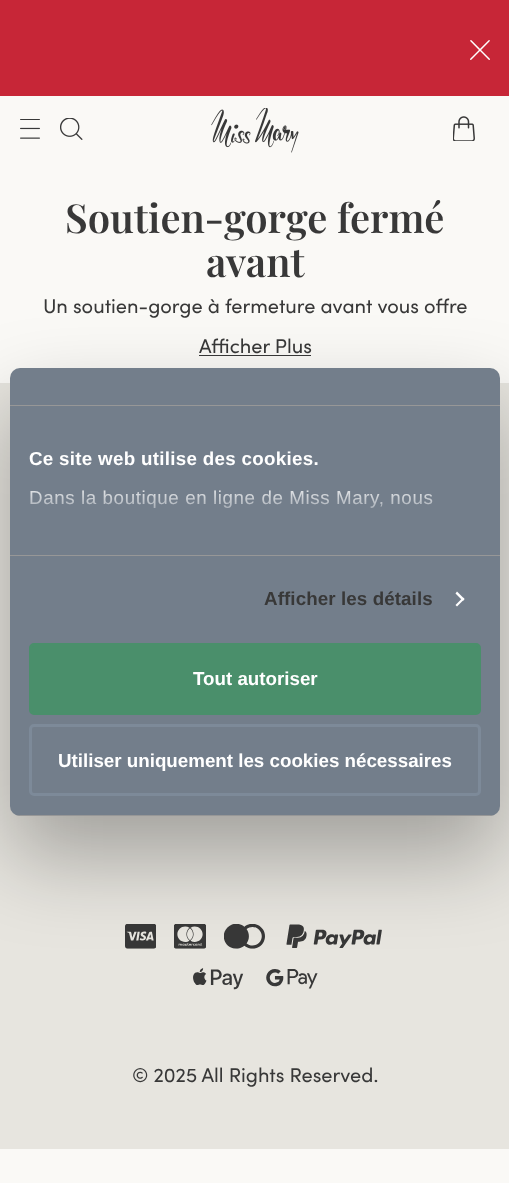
<!DOCTYPE html>
<meta charset="utf-8">
<style>body { margin: 0 } canvas { display: block }</style>
<canvas id="canvas" width="509" height="1183"></canvas>
<script type="module">
  const canvas = document.getElementById("canvas");
  const ctx = canvas.getContext("2d");
  ctx.miterLimit = 4;
  ctx.fontKerning = "normal";
  async function loadImage(src) {
    const img = new Image();
    img.src = src;
    await img.decode();
    return img;
  }
  let gradient;

  ctx.fillStyle = "#faf9f6";
  ctx.fillRect(0, 0, 509, 1183);
  ctx.fillStyle = "#c72637";
  ctx.fillRect(0, 0, 509, 96);
  ctx.drawImage(await loadImage("img1.png"), 470, 40, 20, 20);
  ctx.drawImage(await loadImage("img2.png"), 20, 119, 20, 20);
  ctx.drawImage(await loadImage("img3.png"), 60, 118, 23, 22);
  ctx.drawImage(await loadImage("img4.png"), 211, 108, 88, 45);
  ctx.drawImage(await loadImage("img5.png"), 453, 116, 22, 25);
  ctx.font = "600 40px Playfair Display";
  ctx.fillStyle = "#383838";
  ctx.fillText("Soutien-gorge fermé", 65, 233);
  ctx.fillText("avant", 206, 277);
  ctx.font = "20px Sofia";
  ctx.fillText("Un soutien-gorge à fermeture avant vous offre", 43, 313);
  ctx.fillText("Afficher Plus", 199, 353);
  ctx.fillRect(199, 355, 112, 1);
  ctx.fillStyle = "#e7e5df";
  ctx.fillRect(0, 383, 509, 766);
  ctx.drawImage(await loadImage("img6.png"), 125, 924, 31, 25);
  ctx.drawImage(await loadImage("img7.png"), 174, 924, 32, 25);
  ctx.drawImage(await loadImage("img8.png"), 224, 924, 41, 25);
  ctx.drawImage(await loadImage("img9.png"), 286, 924, 96, 24);
  ctx.drawImage(await loadImage("img10.png"), 193, 968, 51, 22);
  ctx.drawImage(await loadImage("img11.png"), 266, 969, 52, 20);
  ctx.fillStyle = "#383838";
  ctx.fillText("© 2025 All Rights Reserved.", 132, 1082);
  ctx.fillStyle = "rgba(0, 0, 0, 0.3)";
  ctx.filter = "blur(42.5px)";
  ctx.beginPath();
  ctx.roundRect(10, 408, 490, 448, 10);
  ctx.fill();
  ctx.filter = "none";
  ctx.fillStyle = "#737e8b";
  ctx.beginPath();
  ctx.roundRect(10, 368, 490, 448, 10);
  ctx.fill();
  ctx.fillStyle = "#979797";
  ctx.fillRect(10, 405, 490, 1);
  ctx.fillRect(10, 555, 490, 1);
  ctx.letterSpacing = "0.3px";
  ctx.font = "bold 18.75px Liberation Sans";
  ctx.fillStyle = "#ffffff";
  ctx.fillText("Ce site web utilise des cookies.", 29, 465);
  ctx.letterSpacing = "0.6px";
  ctx.font = "18.75px Liberation Sans";
  ctx.fillText("Dans la boutique en ligne de Miss Mary, nous", 29, 504);
  gradient = ctx.createLinearGradient(247, 555, 247, 480);
  gradient.addColorStop(0, "#737e8b");
  gradient.addColorStop(0.5, "rgba(115, 126, 139, 0.8)");
  gradient.addColorStop(1, "rgba(115, 126, 139, 0)");
  ctx.fillStyle = gradient;
  ctx.fillRect(30, 490, 403, 18);
  ctx.letterSpacing = "0.1px";
  ctx.font = "bold 18.75px Liberation Sans";
  ctx.fillStyle = "#383838";
  ctx.fillText("Afficher les détails", 264, 605);
  ctx.fillStyle = "#ffffff";
  ctx.beginPath();
  ctx.moveTo(457, 591.5);
  ctx.lineTo(464.5, 599);
  ctx.lineTo(463, 601);
  ctx.lineTo(455.5, 593.5);
  ctx.closePath();
  ctx.fill();
  ctx.beginPath();
  ctx.moveTo(463, 597.5);
  ctx.lineTo(464.5, 599);
  ctx.lineTo(457, 606.5);
  ctx.lineTo(455.5, 605);
  ctx.closePath();
  ctx.fill();
  ctx.save();
  ctx.beginPath();
  ctx.roundRect(10, 368, 490, 448, 10);
  ctx.clip();
  ctx.fillStyle = "#979797";
  ctx.fillRect(10, 815, 490, 1);
  ctx.restore();
  ctx.fillStyle = "#4a8f6b";
  ctx.beginPath();
  ctx.roundRect(30.5, 644.5, 449, 69, 3.5);
  ctx.fill();
  ctx.strokeStyle = "#4a8f6b";
  ctx.lineWidth = 3;
  ctx.stroke();
  ctx.letterSpacing = "0px";
  ctx.fillStyle = "#ffffff";
  ctx.fillText("Tout autoriser", 193, 685);
  ctx.beginPath();
  ctx.roundRect(30.5, 725.5, 449, 69, 3.5);
  ctx.strokeStyle = "#7d8a99";
  ctx.stroke();
  ctx.fillText("Utiliser uniquement les cookies nécessaires", 58, 767);
</script>
